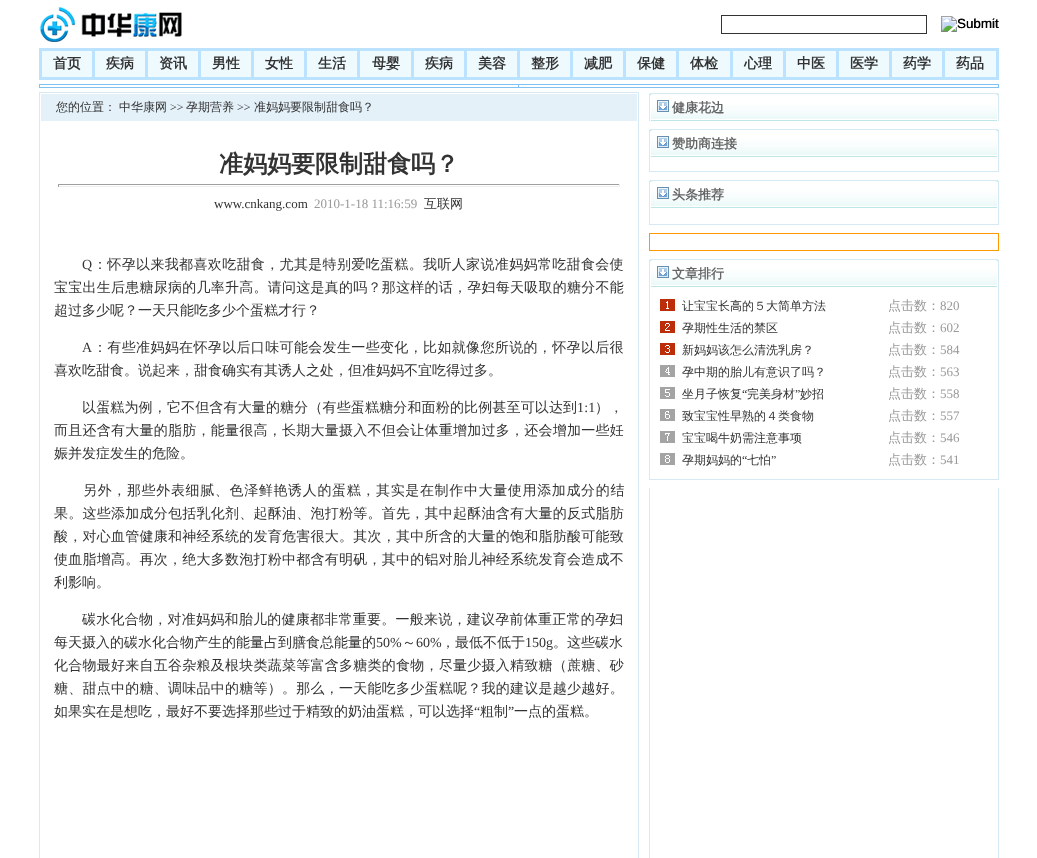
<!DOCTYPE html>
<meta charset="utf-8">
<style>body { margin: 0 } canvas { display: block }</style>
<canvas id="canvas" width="1037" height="858"></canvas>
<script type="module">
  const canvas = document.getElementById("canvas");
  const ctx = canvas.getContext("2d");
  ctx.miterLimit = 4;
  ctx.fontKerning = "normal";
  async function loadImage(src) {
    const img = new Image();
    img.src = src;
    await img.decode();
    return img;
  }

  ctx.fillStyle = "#ffffff";
  ctx.fillRect(0, 0, 1037, 858);
  ctx.drawImage(await loadImage("img1.png"), 40, 7, 142, 35);
  ctx.strokeStyle = "#333333";
  ctx.strokeRect(721.5, 15.5, 205, 18);
  ctx.drawImage(await loadImage("img2.png"), 941, 16, 58, 16);
  ctx.font = "13.5px Liberation Sans";
  ctx.fillStyle = "#000000";
  ctx.fillText("Submit", 957, 28);
  ctx.fillStyle = "#bbe2ff";
  ctx.fillRect(39, 48, 960, 32);
  ctx.fillStyle = "#effaff";
  ctx.fillRect(42, 51, 50, 26);
  ctx.font = "bold 14px WenQuanYi Zen Hei";
  ctx.fillStyle = "#333333";
  ctx.fillText("首页", 53, 68);
  ctx.fillStyle = "#effaff";
  ctx.fillRect(95, 51, 50, 26);
  ctx.fillStyle = "#333333";
  ctx.fillText("疾病", 106, 68);
  ctx.fillStyle = "#effaff";
  ctx.fillRect(148, 51, 50, 26);
  ctx.fillStyle = "#333333";
  ctx.fillText("资讯", 159, 68);
  ctx.fillStyle = "#effaff";
  ctx.fillRect(201, 51, 50, 26);
  ctx.fillStyle = "#333333";
  ctx.fillText("男性", 212, 68);
  ctx.fillStyle = "#effaff";
  ctx.fillRect(254, 51, 50, 26);
  ctx.fillStyle = "#333333";
  ctx.fillText("女性", 265, 68);
  ctx.fillStyle = "#effaff";
  ctx.fillRect(307, 51, 50, 26);
  ctx.fillStyle = "#333333";
  ctx.fillText("生活", 318, 68);
  ctx.fillStyle = "#effaff";
  ctx.fillRect(360, 51, 51, 26);
  ctx.fillStyle = "#333333";
  ctx.fillText("母婴", 372, 68);
  ctx.fillStyle = "#effaff";
  ctx.fillRect(414, 51, 50, 26);
  ctx.fillStyle = "#333333";
  ctx.fillText("疾病", 425, 68);
  ctx.fillStyle = "#effaff";
  ctx.fillRect(467, 51, 50, 26);
  ctx.fillStyle = "#333333";
  ctx.fillText("美容", 478, 68);
  ctx.fillStyle = "#effaff";
  ctx.fillRect(520, 51, 50, 26);
  ctx.fillStyle = "#333333";
  ctx.fillText("整形", 531, 68);
  ctx.fillStyle = "#effaff";
  ctx.fillRect(573, 51, 50, 26);
  ctx.fillStyle = "#333333";
  ctx.fillText("减肥", 584, 68);
  ctx.fillStyle = "#effaff";
  ctx.fillRect(626, 51, 50, 26);
  ctx.fillStyle = "#333333";
  ctx.fillText("保健", 637, 68);
  ctx.fillStyle = "#effaff";
  ctx.fillRect(679, 51, 51, 26);
  ctx.fillStyle = "#333333";
  ctx.fillText("体检", 690, 68);
  ctx.fillStyle = "#effaff";
  ctx.fillRect(733, 51, 50, 26);
  ctx.fillStyle = "#333333";
  ctx.fillText("心理", 744, 68);
  ctx.fillStyle = "#effaff";
  ctx.fillRect(786, 51, 50, 26);
  ctx.fillStyle = "#333333";
  ctx.fillText("中医", 797, 68);
  ctx.fillStyle = "#effaff";
  ctx.fillRect(839, 51, 50, 26);
  ctx.fillStyle = "#333333";
  ctx.fillText("医学", 850, 68);
  ctx.fillStyle = "#effaff";
  ctx.fillRect(892, 51, 50, 26);
  ctx.fillStyle = "#333333";
  ctx.fillText("药学", 903, 68);
  ctx.fillStyle = "#effaff";
  ctx.fillRect(945, 51, 51, 26);
  ctx.fillStyle = "#333333";
  ctx.fillText("药品", 956, 68);
  ctx.fillStyle = "#80c2f4";
  ctx.fillRect(39, 84, 960, 4);
  ctx.fillStyle = "#ffffff";
  ctx.fillRect(40, 85, 478, 2);
  ctx.fillRect(519, 85, 479, 2);
  ctx.drawImage(await loadImage("img3.png"), 39, 92, 960, 766);
  ctx.drawImage(await loadImage("img4.png"), 40, 92, 959, 1);
  ctx.fillStyle = "#e4f1f9";
  ctx.fillRect(41, 94, 596, 27);
  ctx.font = "500 12px WenQuanYi Zen Hei";
  ctx.fillStyle = "#333333";
  ctx.fillText("您的位置：", 56, 111);
  ctx.fillText("中华康网", 119, 111);
  ctx.font = "12px Liberation Serif";
  ctx.fillText(">>", 170, 111);
  ctx.font = "500 12px WenQuanYi Zen Hei";
  ctx.fillText("孕期营养", 186, 111);
  ctx.font = "12px Liberation Serif";
  ctx.fillText(">>", 237, 111);
  ctx.font = "500 12px WenQuanYi Zen Hei";
  ctx.fillText("准妈妈要限制甜食吗？", 254, 111);
  ctx.font = "bold 24px WenQuanYi Zen Hei";
  ctx.fillText("准妈妈要限制甜食吗？", 219, 172);
  ctx.fillStyle = "#9f9f9f";
  ctx.fillRect(58, 184, 562, 1);
  ctx.fillStyle = "#eeeeee";
  ctx.fillRect(619, 184, 1, 3);
  ctx.fillRect(58, 186, 562, 1);
  ctx.fillStyle = "#9f9f9f";
  ctx.fillRect(58, 184, 1, 3);
  ctx.font = "13px Liberation Serif";
  ctx.fillStyle = "#333333";
  ctx.fillText("www.cnkang.com", 214, 208);
  ctx.fillStyle = "#999999";
  ctx.fillText("2010-1-18 11:16:59", 314, 208);
  ctx.font = "500 13px WenQuanYi Zen Hei";
  ctx.fillStyle = "#333333";
  ctx.fillText("互联网", 424, 208);
  ctx.letterSpacing = "0.35px";
  ctx.font = "14px Liberation Serif";
  ctx.fillText("Q", 82, 269);
  ctx.font = "500 14px WenQuanYi Zen Hei";
  ctx.fillText("：怀孕以来我都喜欢吃甜食，尤其是特别爱吃蛋糕。我听人家说准妈妈常吃甜食会使", 93, 269);
  ctx.letterSpacing = "0.25px";
  ctx.fillText("宝宝出生后患糖尿病的几率升高。请问这是真的吗？那这样的话，孕妇每天吸取的糖分不能", 54, 292);
  ctx.letterSpacing = "0px";
  ctx.fillText("超过多少呢？一天只能吃多少个蛋糕才行？", 54, 315);
  ctx.letterSpacing = "0.35px";
  ctx.font = "14px Liberation Serif";
  ctx.fillText("A", 82, 352);
  ctx.font = "500 14px WenQuanYi Zen Hei";
  ctx.fillText("：有些准妈妈在怀孕以后口味可能会发生一些变化，比如就像您所说的，怀孕以后很", 93, 352);
  ctx.letterSpacing = "0px";
  ctx.fillText("喜欢吃甜食。说起来，甜食确实有其诱人之处，但准妈妈不宜吃得过多。", 54, 375);
  ctx.letterSpacing = "0.15px";
  ctx.fillText("以蛋糕为例，它不但含有大量的糖分（有些蛋糕糖分和面粉的比例甚至可以达到", 82, 412);
  ctx.font = "14px Liberation Serif";
  ctx.fillText("1:1", 577, 412);
  ctx.font = "500 14px WenQuanYi Zen Hei";
  ctx.fillText("），", 595, 412);
  ctx.letterSpacing = "0.25px";
  ctx.fillText("而且还含有大量的脂肪，能量很高，长期大量摄入不但会让体重增加过多，还会增加一些妊", 54, 435);
  ctx.letterSpacing = "0px";
  ctx.fillText("娠并发症发生的危险。", 54, 458);
  ctx.letterSpacing = "0.65px";
  ctx.fillText("另外，那些外表细腻、色泽鲜艳诱人的蛋糕，其实是在制作中大量使用添加成分的结", 83, 495);
  ctx.letterSpacing = "0.25px";
  ctx.fillText("果。这些添加成分包括乳化剂、起酥油、泡打粉等。首先，其中起酥油含有大量的反式脂肪", 54, 518);
  ctx.fillText("酸，对心血管健康和神经系统的发育危害很大。其次，其中所含的大量的饱和脂肪酸可能致", 54, 541);
  ctx.fillText("使血脂增高。再次，绝大多数泡打粉中都含有明矾，其中的铝对胎儿神经系统发育会造成不", 54, 564);
  ctx.letterSpacing = "0px";
  ctx.fillText("利影响。", 54, 587);
  ctx.letterSpacing = "0.25px";
  ctx.fillText("碳水化合物，对准妈妈和胎儿的健康都非常重要。一般来说，建议孕前体重正常的孕妇", 82, 624);
  ctx.letterSpacing = "0px";
  ctx.fillText("每天摄入的碳水化合物产生的能量占到膳食总能量的", 54, 647);
  ctx.font = "14px Liberation Serif";
  ctx.fillText("50%", 376, 647);
  ctx.font = "500 14px WenQuanYi Zen Hei";
  ctx.fillText("～", 402, 647);
  ctx.font = "14px Liberation Serif";
  ctx.fillText("60%", 416, 647);
  ctx.font = "500 14px WenQuanYi Zen Hei";
  ctx.fillText("，最低不低于", 441, 647);
  ctx.font = "14px Liberation Serif";
  ctx.fillText("150g", 525, 647);
  ctx.font = "500 14px WenQuanYi Zen Hei";
  ctx.fillText("。这些碳水", 553, 647);
  ctx.letterSpacing = "0.25px";
  ctx.fillText("化合物最好来自五谷杂粮及根块类蔬菜等富含多糖类的食物，尽量少摄入精致糖（蔗糖、砂", 54, 670);
  ctx.fillText("糖、甜点中的糖、调味品中的糖等）。那么，一天能吃多少蛋糕呢？我的建议是越少越好。", 54, 693);
  ctx.letterSpacing = "0px";
  ctx.fillText("如果实在是想吃，最好不要选择那些过于精致的奶油蛋糕，可以选择", 54, 716);
  ctx.font = "14px Liberation Serif";
  ctx.fillText("“", 474, 716);
  ctx.font = "500 14px WenQuanYi Zen Hei";
  ctx.fillText("粗制", 480, 716);
  ctx.font = "14px Liberation Serif";
  ctx.fillText("”", 508, 716);
  ctx.font = "500 14px WenQuanYi Zen Hei";
  ctx.fillText("一点的蛋糕。", 514, 716);
  ctx.drawImage(await loadImage("img5.png"), 649, 93, 8, 28);
  ctx.drawImage(await loadImage("img6.png"), 657, 93, 334, 28);
  ctx.drawImage(await loadImage("img7.png"), 657, 100, 12, 12);
  ctx.font = "bold 13px WenQuanYi Zen Hei";
  ctx.fillStyle = "#666666";
  ctx.fillText("健康花边", 672, 112);
  ctx.drawImage(await loadImage("img8.png"), 991, 93, 8, 28);
  ctx.fillStyle = "#ffffff";
  ctx.fillRect(649, 121, 350, 8);
  ctx.drawImage(await loadImage("img5.png"), 649, 129, 8, 28);
  ctx.drawImage(await loadImage("img6.png"), 657, 129, 334, 28);
  ctx.drawImage(await loadImage("img7.png"), 657, 136, 12, 12);
  ctx.fillStyle = "#666666";
  ctx.fillText("赞助商连接", 672, 148);
  ctx.drawImage(await loadImage("img8.png"), 991, 129, 8, 28);
  ctx.fillStyle = "#d5eaf4";
  ctx.fillRect(649, 171, 350, 1);
  ctx.fillStyle = "#ffffff";
  ctx.fillRect(649, 172, 350, 8);
  ctx.drawImage(await loadImage("img5.png"), 649, 180, 8, 28);
  ctx.drawImage(await loadImage("img6.png"), 657, 180, 334, 28);
  ctx.drawImage(await loadImage("img7.png"), 657, 187, 12, 12);
  ctx.fillStyle = "#666666";
  ctx.fillText("头条推荐", 672, 199);
  ctx.drawImage(await loadImage("img8.png"), 991, 180, 8, 28);
  ctx.fillStyle = "#d5eaf4";
  ctx.fillRect(649, 224, 350, 1);
  ctx.fillStyle = "#ffffff";
  ctx.fillRect(649, 225, 350, 8);
  ctx.strokeStyle = "#ff9900";
  ctx.strokeRect(649.5, 233.5, 349, 17);
  ctx.fillRect(649, 251, 350, 8);
  ctx.drawImage(await loadImage("img5.png"), 649, 259, 8, 28);
  ctx.drawImage(await loadImage("img6.png"), 657, 259, 334, 28);
  ctx.drawImage(await loadImage("img7.png"), 657, 266, 12, 12);
  ctx.fillStyle = "#666666";
  ctx.fillText("文章排行", 672, 278);
  ctx.drawImage(await loadImage("img8.png"), 991, 259, 8, 28);
  ctx.fillStyle = "#d5eaf4";
  ctx.fillRect(649, 479, 350, 1);
  ctx.drawImage(await loadImage("img9.png"), 660, 299, 15, 166);
  ctx.font = "500 12px WenQuanYi Zen Hei";
  ctx.fillStyle = "#333333";
  ctx.fillText("让宝宝长高的５大简单方法", 682, 310);
  ctx.font = "500 13px WenQuanYi Zen Hei";
  ctx.fillStyle = "#999999";
  ctx.fillText("点击数：", 888, 310);
  ctx.font = "13px Liberation Serif";
  ctx.fillText("820", 940, 310);
  ctx.font = "500 12px WenQuanYi Zen Hei";
  ctx.fillStyle = "#333333";
  ctx.fillText("孕期性生活的禁区", 682, 332);
  ctx.font = "500 13px WenQuanYi Zen Hei";
  ctx.fillStyle = "#999999";
  ctx.fillText("点击数：", 888, 332);
  ctx.font = "13px Liberation Serif";
  ctx.fillText("602", 940, 332);
  ctx.font = "500 12px WenQuanYi Zen Hei";
  ctx.fillStyle = "#333333";
  ctx.fillText("新妈妈该怎么清洗乳房？", 682, 354);
  ctx.font = "500 13px WenQuanYi Zen Hei";
  ctx.fillStyle = "#999999";
  ctx.fillText("点击数：", 888, 354);
  ctx.font = "13px Liberation Serif";
  ctx.fillText("584", 940, 354);
  ctx.font = "500 12px WenQuanYi Zen Hei";
  ctx.fillStyle = "#333333";
  ctx.fillText("孕中期的胎儿有意识了吗？", 682, 376);
  ctx.font = "500 13px WenQuanYi Zen Hei";
  ctx.fillStyle = "#999999";
  ctx.fillText("点击数：", 888, 376);
  ctx.font = "13px Liberation Serif";
  ctx.fillText("563", 940, 376);
  ctx.font = "500 12px WenQuanYi Zen Hei";
  ctx.fillStyle = "#333333";
  ctx.fillText("坐月子恢复", 682, 398);
  ctx.font = "12px Liberation Serif";
  ctx.fillText("“", 742, 398);
  ctx.font = "500 12px WenQuanYi Zen Hei";
  ctx.fillText("完美身材", 747, 398);
  ctx.font = "12px Liberation Serif";
  ctx.fillText("”", 795, 398);
  ctx.font = "500 12px WenQuanYi Zen Hei";
  ctx.fillText("妙招", 800, 398);
  ctx.font = "500 13px WenQuanYi Zen Hei";
  ctx.fillStyle = "#999999";
  ctx.fillText("点击数：", 888, 398);
  ctx.font = "13px Liberation Serif";
  ctx.fillText("558", 940, 398);
  ctx.font = "500 12px WenQuanYi Zen Hei";
  ctx.fillStyle = "#333333";
  ctx.fillText("致宝宝性早熟的４类食物", 682, 420);
  ctx.font = "500 13px WenQuanYi Zen Hei";
  ctx.fillStyle = "#999999";
  ctx.fillText("点击数：", 888, 420);
  ctx.font = "13px Liberation Serif";
  ctx.fillText("557", 940, 420);
  ctx.font = "500 12px WenQuanYi Zen Hei";
  ctx.fillStyle = "#333333";
  ctx.fillText("宝宝喝牛奶需注意事项", 682, 442);
  ctx.font = "500 13px WenQuanYi Zen Hei";
  ctx.fillStyle = "#999999";
  ctx.fillText("点击数：", 888, 442);
  ctx.font = "13px Liberation Serif";
  ctx.fillText("546", 940, 442);
  ctx.font = "500 12px WenQuanYi Zen Hei";
  ctx.fillStyle = "#333333";
  ctx.fillText("孕期妈妈的", 682, 464);
  ctx.font = "12px Liberation Serif";
  ctx.fillText("“", 742, 464);
  ctx.font = "500 12px WenQuanYi Zen Hei";
  ctx.fillText("七怕", 747, 464);
  ctx.font = "12px Liberation Serif";
  ctx.fillText("”", 771, 464);
  ctx.font = "500 13px WenQuanYi Zen Hei";
  ctx.fillStyle = "#999999";
  ctx.fillText("点击数：", 888, 464);
  ctx.font = "13px Liberation Serif";
  ctx.fillText("541", 940, 464);
  ctx.fillStyle = "#ffffff";
  ctx.fillRect(649, 480, 350, 8);
</script>
